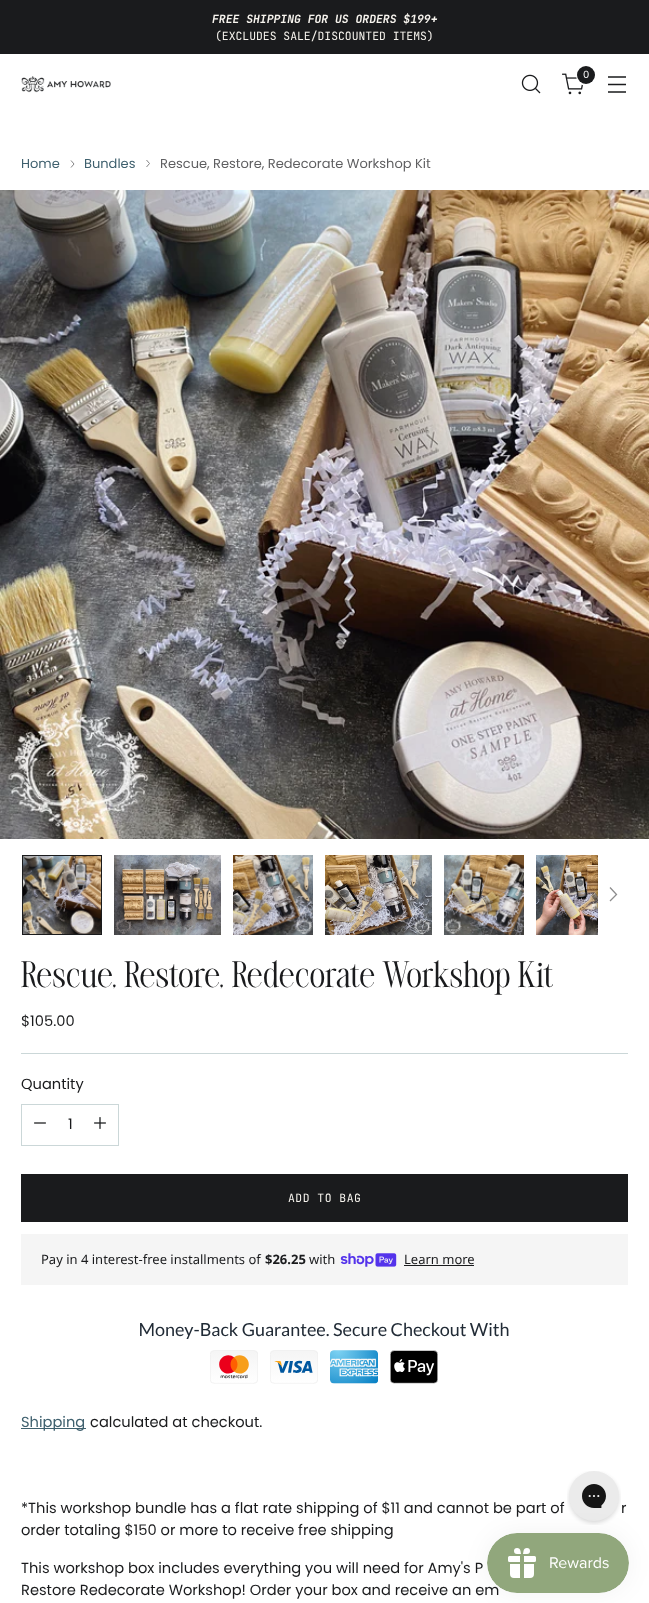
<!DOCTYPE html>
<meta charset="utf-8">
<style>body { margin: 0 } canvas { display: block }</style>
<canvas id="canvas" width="649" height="1603"></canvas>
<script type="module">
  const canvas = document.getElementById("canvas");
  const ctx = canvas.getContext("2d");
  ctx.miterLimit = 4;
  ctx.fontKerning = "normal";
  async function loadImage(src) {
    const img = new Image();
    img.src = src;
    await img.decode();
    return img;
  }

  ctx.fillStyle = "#ffffff";
  ctx.fillRect(0, 0, 649, 1603);
  ctx.fillStyle = "#1a1b1d";
  ctx.fillRect(0, 0, 649, 54);
  ctx.font = "italic bold 11.4px JetBrains Mono";
  ctx.fillStyle = "#f7f4ee";
  ctx.fillText("FREE SHIPPING FOR US ORDERS $199+", 212, 23);
  ctx.font = "11.4px JetBrains Mono";
  ctx.fillText("(EXCLUDES SALE/DISCOUNTED ITEMS)", 215, 40);
  ctx.drawImage(await loadImage("img1.png"), 521, 74, 20, 20);
  ctx.drawImage(await loadImage("img2.png"), 562, 73, 22, 22);
  ctx.beginPath();
  ctx.arc(586.5, 75.5, 9.5, 0, Math.PI * 2);
  ctx.strokeStyle = "#ffffff";
  ctx.lineWidth = 2;
  ctx.stroke();
  ctx.fillStyle = "#1a1b1d";
  ctx.beginPath();
  ctx.arc(586, 75, 9, 0, Math.PI * 2);
  ctx.fill();
  ctx.font = "10px Poppins";
  ctx.fillStyle = "#ffffff";
  ctx.fillText("0", 583, 78);
  ctx.beginPath();
  ctx.moveTo(608, 84.5);
  ctx.lineTo(626, 84.5);
  ctx.moveTo(608, 77);
  ctx.lineTo(626, 77);
  ctx.moveTo(608, 92);
  ctx.lineTo(626, 92);
  ctx.strokeStyle = "#1a1b1d";
  ctx.lineWidth = 1.3;
  ctx.stroke();
  ctx.drawImage(await loadImage("img3.png"), 21, 76, 90, 17);
  ctx.font = "13px Poppins";
  ctx.fillStyle = "#3f606e";
  ctx.fillText("Home", 21, 168);
  ctx.beginPath();
  ctx.moveTo(71, 167.5);
  ctx.lineTo(74, 164);
  ctx.lineTo(71, 160.5);
  ctx.strokeStyle = "#767677";
  ctx.lineWidth = 0.9;
  ctx.stroke();
  ctx.fillText("Bundles", 84, 168);
  ctx.beginPath();
  ctx.moveTo(146.5, 167);
  ctx.lineTo(149.5, 163.5);
  ctx.lineTo(146.5, 160);
  ctx.stroke();
  ctx.fillStyle = "#5f5f61";
  ctx.fillText("Rescue, Restore, Redecorate Workshop Kit", 160, 168);
  ctx.drawImage(await loadImage("img4.png"), 0, 190, 649, 649);
  ctx.drawImage(await loadImage("img5.png"), 23, 856, 78, 78);
  ctx.strokeStyle = "#1a1b1d";
  ctx.lineWidth = 1;
  ctx.strokeRect(22.5, 855.5, 79, 79);
  ctx.drawImage(await loadImage("img6.png"), 114, 855, 107, 80);
  ctx.drawImage(await loadImage("img7.png"), 233, 855, 80, 80);
  ctx.drawImage(await loadImage("img8.png"), 325, 855, 107, 80);
  ctx.drawImage(await loadImage("img9.png"), 444, 855, 80, 80);
  ctx.drawImage(await loadImage("img10.png"), 536, 855, 62, 80);
  ctx.fillStyle = "rgba(0, 0, 0, 0.09)";
  ctx.fillRect(597, 855, 1, 80);
  ctx.beginPath();
  ctx.moveTo(610, 901);
  ctx.lineTo(616.5, 894.5);
  ctx.lineTo(610, 887.5);
  ctx.strokeStyle = "#8d8d8e";
  ctx.lineWidth = 1.3;
  ctx.stroke();
  ctx.fillStyle = "#cbd7d8";
  ctx.fillRect(21, 1053, 607, 1);
  ctx.letterSpacing = "1.3px";
  ctx.font = "25.8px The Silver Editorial";
  ctx.fillStyle = "#1a1b1d";
  ctx.fillText("Rescue, Restore, Redecorate Workshop Kit", 21, 987);
  ctx.letterSpacing = "0px";
  ctx.font = "14.65px Poppins";
  ctx.fillText("$105.00", 21, 1026);
  ctx.fillText("Quantity", 21, 1089);
  ctx.strokeStyle = "#cbd7d8";
  ctx.lineWidth = 1;
  ctx.strokeRect(21.5, 1104.5, 97, 41);
  ctx.drawImage(await loadImage("img11.png"), 34, 1122, 12, 2);
  ctx.fillText("1", 68, 1129);
  ctx.drawImage(await loadImage("img12.png"), 94, 1117, 12, 12);
  ctx.save();
  ctx.beginPath();
  ctx.rect(21, 1174, 607, 48);
  ctx.clip();
  ctx.beginPath();
  ctx.moveTo(-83, 1174);
  ctx.lineTo(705, 1174);
  ctx.lineTo(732, 1222);
  ctx.lineTo(-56, 1222);
  ctx.closePath();
  ctx.fill();
  ctx.restore();
  ctx.letterSpacing = "0.5px";
  ctx.font = "11.4px JetBrains Mono";
  ctx.fillStyle = "#f7f4ee";
  ctx.fillText("ADD TO BAG", 288, 1202);
  ctx.fillStyle = "#f5f5f5";
  ctx.fillRect(21, 1234, 607, 51);
  ctx.letterSpacing = "0px";
  ctx.font = "13px Noto Sans";
  ctx.fillStyle = "#1a1b1d";
  ctx.fillText("Pay in 4 interest-free installments of", 41, 1264);
  ctx.font = "bold 13px Noto Sans";
  ctx.fillText("$26.25", 265, 1264);
  ctx.font = "13px Noto Sans";
  ctx.fillText("with", 309, 1264);
  ctx.drawImage(await loadImage("img13.png"), 340, 1253, 57, 14);
  ctx.fillText("Learn more", 404, 1264);
  ctx.fillRect(404, 1265, 70, 1);
  ctx.drawImage(await loadImage("img14.png"), 140, 1322, 369, 62);
  ctx.fillStyle = "#3f606e";
  ctx.fillRect(21, 1428, 65, 1);
  ctx.font = "14.65px Poppins";
  ctx.fillText("Shipping", 21, 1427);
  ctx.fillStyle = "#1a1b1d";
  ctx.fillText("calculated at checkout.", 90, 1427);
  ctx.fillText("*This workshop bundle has a flat rate shipping of $11 and cannot be part of", 21, 1513);
  ctx.fillText("r", 621, 1513);
  ctx.fillText("order totaling $150 or more to receive free shipping", 21, 1535);
  ctx.fillText("This workshop box includes everything you will need for Amy's P", 21, 1573);
  ctx.fillText("Restore Redecorate Workshop! Order your box and receive an em", 21, 1595);
  ctx.drawImage(await loadImage("img15.png"), 567, 1471, 54, 54);
  ctx.fillStyle = "rgba(0, 0, 0, 0.05)";
  ctx.filter = "blur(12.5px)";
  ctx.beginPath();
  ctx.roundRect(487, 1533, 142, 60, 30);
  ctx.fill();
  ctx.filter = "none";
  ctx.drawImage(await loadImage("img16.png"), 487, 1533, 142, 60);
</script>
